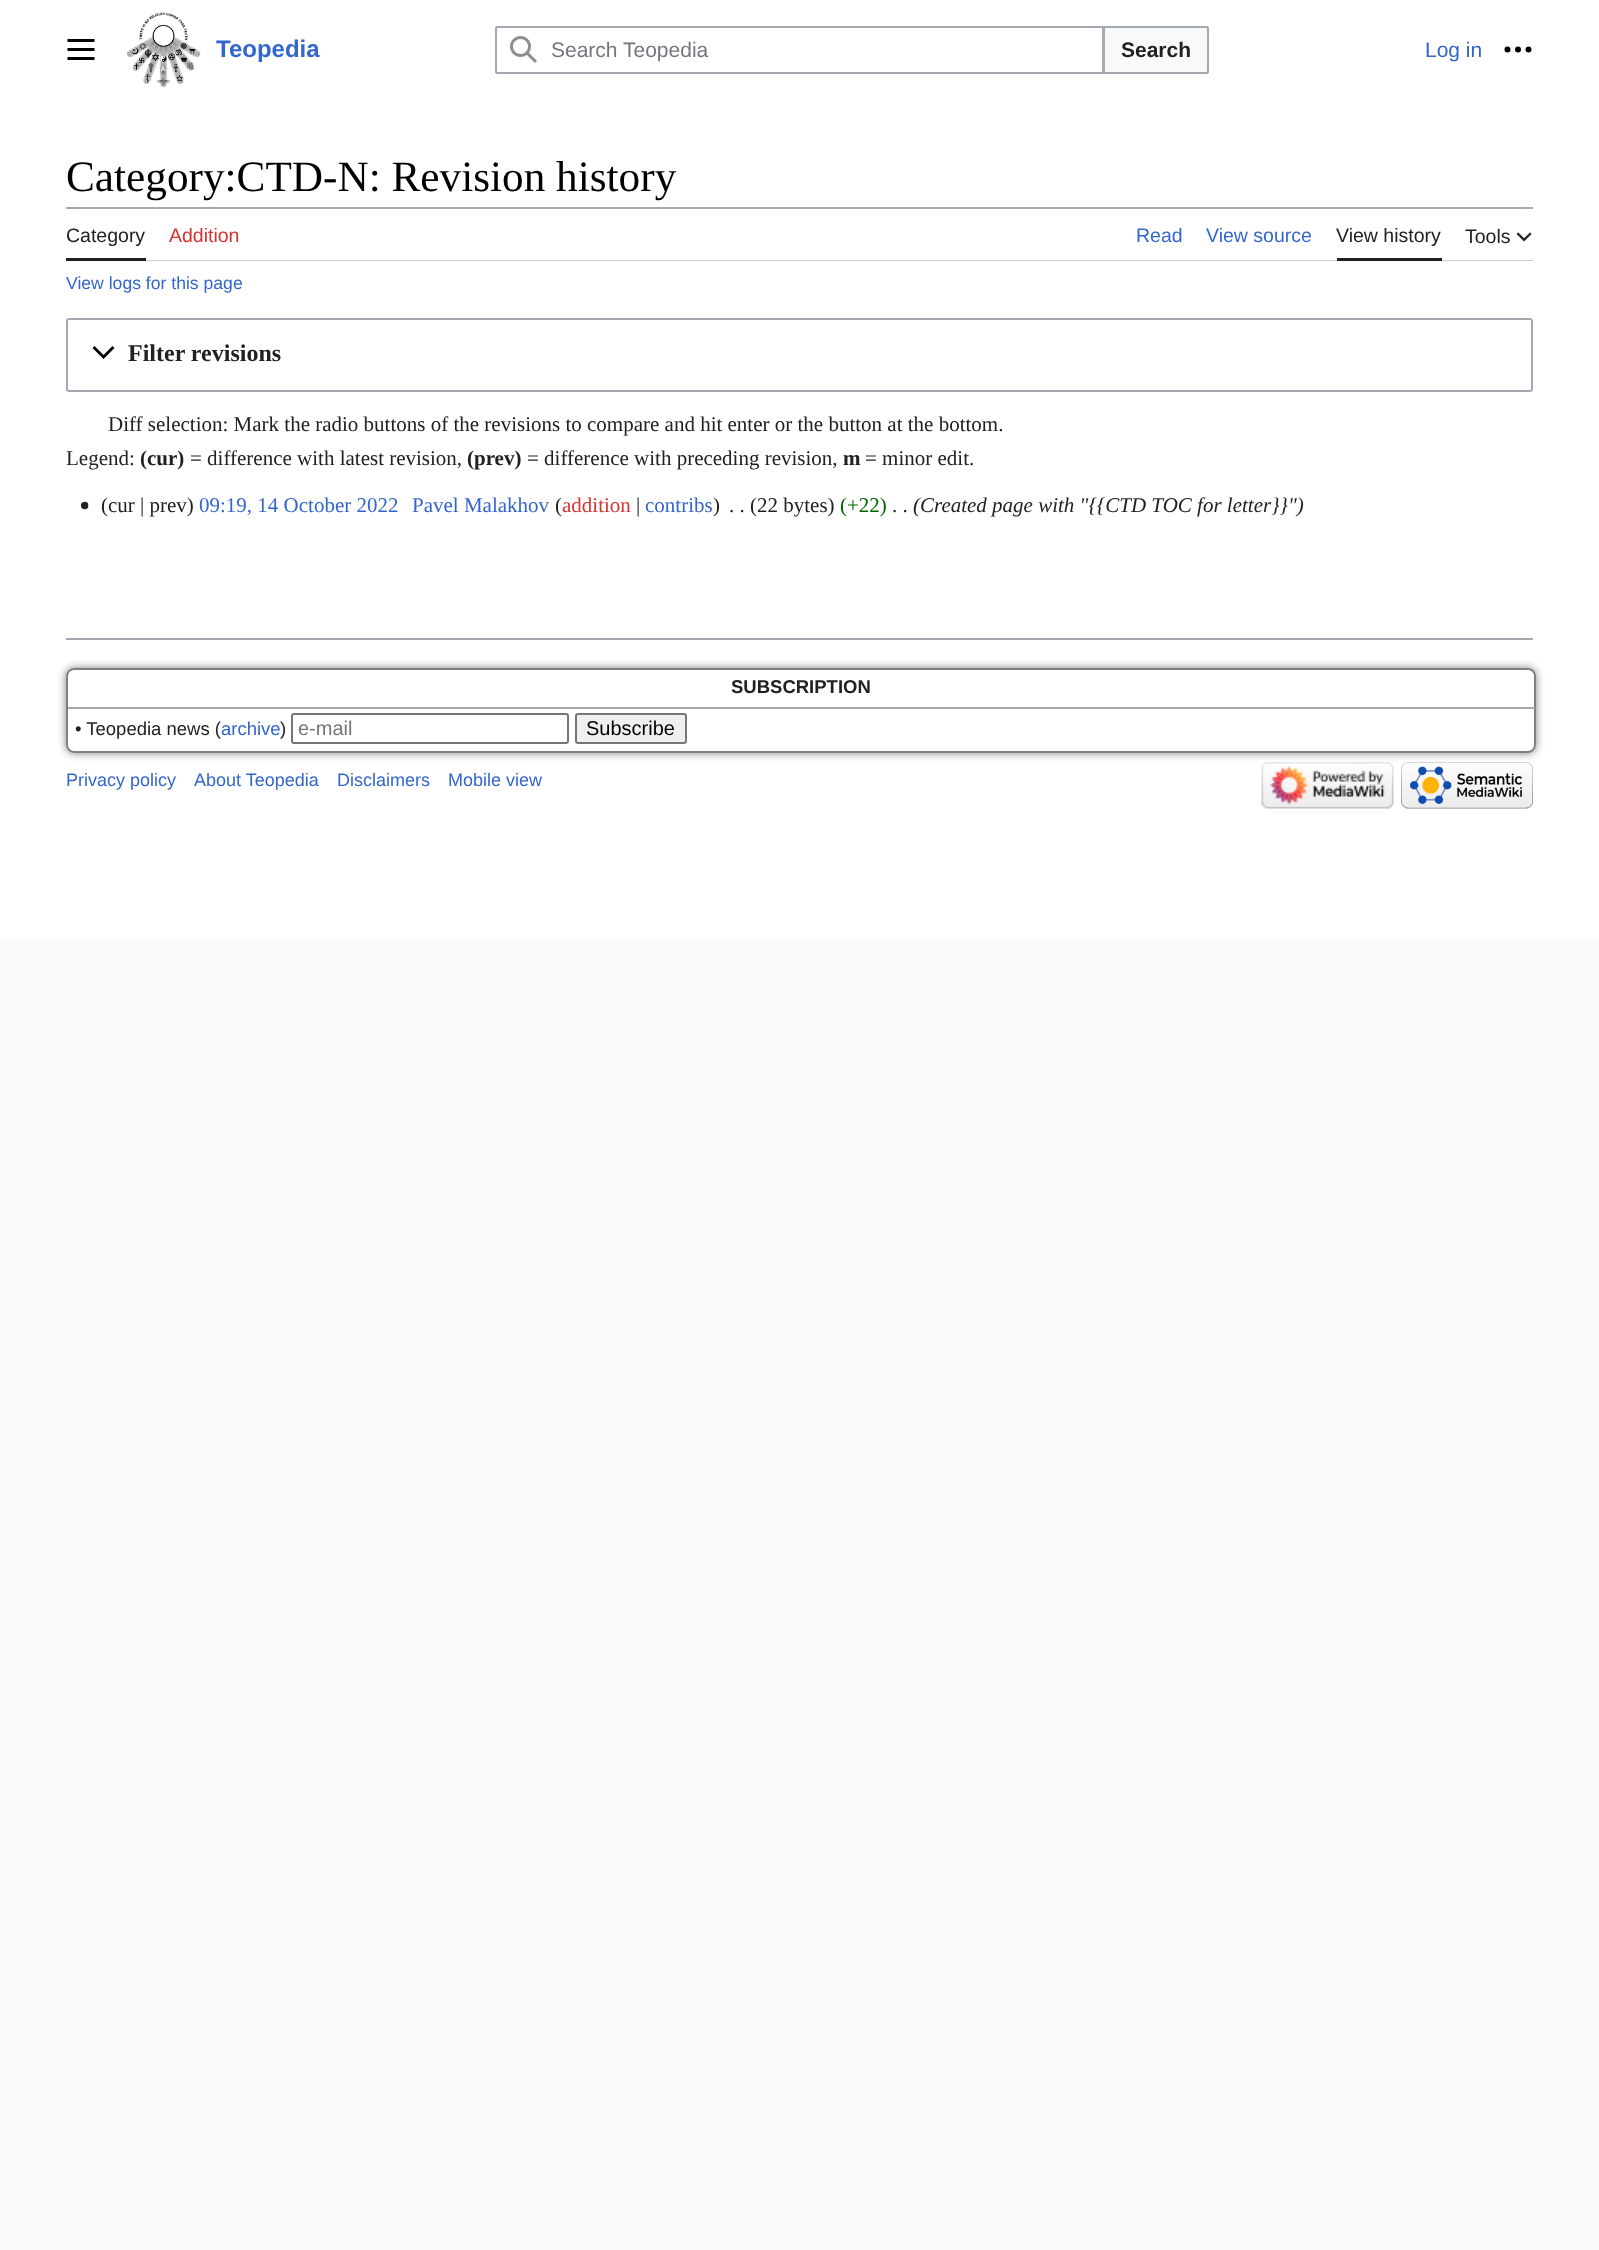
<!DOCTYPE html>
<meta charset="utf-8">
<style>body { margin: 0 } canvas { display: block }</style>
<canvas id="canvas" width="1599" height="2250"></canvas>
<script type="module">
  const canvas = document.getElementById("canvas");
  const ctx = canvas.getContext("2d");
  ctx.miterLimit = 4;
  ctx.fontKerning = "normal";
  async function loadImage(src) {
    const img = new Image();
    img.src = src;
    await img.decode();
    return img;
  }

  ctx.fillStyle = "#f8f9fa";
  ctx.fillRect(0, 0, 1599, 2250);
  ctx.fillStyle = "#ffffff";
  ctx.fillRect(0, 0, 1599, 941);
  ctx.drawImage(await loadImage("img1.png"), 67, 39, 28, 21);
  ctx.drawImage(await loadImage("img2.png"), 126, 12, 75, 75);
  ctx.font = "bold 24px Liberation Sans";
  ctx.fillStyle = "#3366cc";
  ctx.fillText("Teopedia", 216, 57);
  ctx.beginPath();
  ctx.roundRect(496, 27, 712, 46, 2);
  ctx.strokeStyle = "#a2a9b1";
  ctx.lineWidth = 2;
  ctx.stroke();
  ctx.fillStyle = "#f8f9fa";
  ctx.beginPath();
  ctx.roundRect(1104, 27, 104, 46, [0, 2, 2, 0]);
  ctx.fill();
  ctx.stroke();
  ctx.fillStyle = "#ffffff";
  ctx.beginPath();
  ctx.roundRect(496, 27, 607, 46, [2, 0, 0, 2]);
  ctx.fill();
  ctx.stroke();
  ctx.drawImage(await loadImage("img3.png"), 510, 36, 27, 27);
  ctx.font = "21px Liberation Sans";
  ctx.fillStyle = "#72777d";
  ctx.fillText("Search Teopedia", 551, 57);
  ctx.font = "bold 21px Liberation Sans";
  ctx.fillStyle = "#202122";
  ctx.fillText("Search", 1121, 57);
  ctx.font = "21px Liberation Sans";
  ctx.fillStyle = "#3366cc";
  ctx.fillText("Log in", 1425, 57);
  ctx.drawImage(await loadImage("img4.png"), 1504, 46, 28, 7);
  ctx.fillStyle = "#a2a9b1";
  ctx.fillRect(66, 207, 1467, 2);
  ctx.font = "43.25px Liberation Serif";
  ctx.fillStyle = "#000000";
  ctx.fillText("Category:CTD-N: Revision history", 66, 191);
  ctx.fillStyle = "#c8ccd1";
  ctx.fillRect(146, 260, 1387, 1);
  ctx.fillStyle = "#202122";
  ctx.fillRect(66, 258, 80, 3);
  ctx.font = "19.5px Liberation Sans";
  ctx.fillText("Category", 66, 242);
  ctx.fillStyle = "#d73333";
  ctx.fillText("Addition", 169, 242);
  ctx.fillStyle = "#3366cc";
  ctx.fillText("Read", 1136, 242);
  ctx.fillText("View source", 1206, 242);
  ctx.fillStyle = "#202122";
  ctx.fillRect(1337, 258, 105, 3);
  ctx.fillText("View history", 1336, 242);
  ctx.fillText("Tools", 1465, 243);
  ctx.drawImage(await loadImage("img5.png"), 1516, 232, 16, 10);
  ctx.font = "17.6px Liberation Sans";
  ctx.fillStyle = "#3366cc";
  ctx.fillText("View logs for this page", 66, 289);
  ctx.beginPath();
  ctx.roundRect(67, 319, 1465, 72, 2);
  ctx.stroke();
  ctx.fillStyle = "#000000";
  ctx.beginPath();
  ctx.moveTo(112.5, 346);
  ctx.lineTo(103.5, 355);
  ctx.lineTo(94.5, 346);
  ctx.lineTo(92.5, 348);
  ctx.lineTo(103.5, 359);
  ctx.lineTo(114.5, 348);
  ctx.closePath();
  ctx.fill();
  ctx.font = "bold 24px Liberation Serif";
  ctx.fillStyle = "#202122";
  ctx.fillText("Filter revisions", 128, 361);
  ctx.font = "21px Liberation Serif";
  ctx.fillText("Diff selection: Mark the radio buttons of the revisions to compare and hit enter or the button at the bottom.", 108, 431);
  ctx.fillText("Legend:", 66, 465);
  ctx.font = "bold 21px Liberation Serif";
  ctx.fillText("(cur)", 140, 465);
  ctx.font = "21px Liberation Serif";
  ctx.fillText("= difference with latest revision,", 190, 465);
  ctx.font = "bold 21px Liberation Serif";
  ctx.fillText("(prev)", 467, 465);
  ctx.font = "21px Liberation Serif";
  ctx.fillText("= difference with preceding revision,", 527, 465);
  ctx.font = "bold 21px Liberation Serif";
  ctx.fillText("m", 843, 465);
  ctx.font = "21px Liberation Serif";
  ctx.fillText("= minor edit.", 865, 465);
  ctx.drawImage(await loadImage("img6.png"), 81, 501, 8, 9);
  ctx.fillText("(cur | prev)", 101, 512);
  ctx.fillStyle = "#3366cc";
  ctx.fillText("09:19, 14 October 2022", 199, 512);
  ctx.fillText("Pavel Malakhov", 412, 512);
  ctx.fillStyle = "#202122";
  ctx.fillText("(", 555, 512);
  ctx.fillStyle = "#d73333";
  ctx.fillText("addition", 562, 512);
  ctx.fillStyle = "#202122";
  ctx.fillText("|", 636, 512);
  ctx.fillStyle = "#3366cc";
  ctx.fillText("contribs", 645, 512);
  ctx.fillStyle = "#202122";
  ctx.fillText(")", 713, 512);
  ctx.fillText(". . (22 bytes)", 729, 512);
  ctx.fillStyle = "#006400";
  ctx.fillText("(+22)", 840, 512);
  ctx.fillStyle = "#202122";
  ctx.fillText(". .", 892, 512);
  ctx.font = "italic 21px Liberation Serif";
  ctx.fillText("(Created page with \"{{CTD TOC for letter}}\")", 913, 512);
  ctx.fillStyle = "#a2a9b1";
  ctx.fillRect(66, 638, 1467, 2);
  ctx.save();
  ctx.beginPath();
  ctx.moveTo(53, 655);
  ctx.lineTo(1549, 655);
  ctx.lineTo(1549, 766);
  ctx.lineTo(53, 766);
  ctx.closePath();
  ctx.moveTo(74, 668);
  ctx.lineTo(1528, 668);
  ctx.bezierCurveTo(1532.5, 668, 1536, 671.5, 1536, 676);
  ctx.lineTo(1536, 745);
  ctx.bezierCurveTo(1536, 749.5, 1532.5, 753, 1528, 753);
  ctx.lineTo(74, 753);
  ctx.bezierCurveTo(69.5, 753, 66, 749.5, 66, 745);
  ctx.lineTo(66, 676);
  ctx.bezierCurveTo(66, 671.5, 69.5, 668, 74, 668);
  ctx.closePath();
  ctx.clip("evenodd");
  ctx.fillStyle = "rgba(0, 0, 0, 0.5)";
  ctx.filter = "blur(4px)";
  ctx.beginPath();
  ctx.roundRect(66, 668, 1470, 85, 8);
  ctx.fill();
  ctx.filter = "none";
  ctx.restore();
  ctx.beginPath();
  ctx.roundRect(67, 669, 1468, 83, 7);
  ctx.strokeStyle = "#808080";
  ctx.stroke();
  ctx.font = "bold 18.5px Liberation Sans";
  ctx.fillStyle = "#202122";
  ctx.fillText("SUBSCRIPTION", 731, 693);
  ctx.fillStyle = "#a2a9b1";
  ctx.fillRect(68, 707, 1467, 2);
  ctx.font = "18.5px Liberation Sans";
  ctx.fillStyle = "#202122";
  ctx.fillText("• Teopedia news (", 75, 735);
  ctx.fillStyle = "#3366cc";
  ctx.fillText("archive", 221, 735);
  ctx.fillStyle = "#202122";
  ctx.fillText(")", 280, 735);
  ctx.beginPath();
  ctx.roundRect(292, 714, 276, 29, 2);
  ctx.strokeStyle = "#767676";
  ctx.stroke();
  ctx.font = "20px Liberation Sans";
  ctx.fillStyle = "#757575";
  ctx.fillText("e-mail", 298, 735);
  ctx.fillStyle = "#efefef";
  ctx.beginPath();
  ctx.roundRect(576, 714, 110, 29, 2);
  ctx.fill();
  ctx.stroke();
  ctx.fillStyle = "#000000";
  ctx.fillText("Subscribe", 586, 735);
  ctx.font = "18px Liberation Sans";
  ctx.fillStyle = "#3366cc";
  ctx.fillText("Privacy policy", 66, 786);
  ctx.fillText("About Teopedia", 194, 786);
  ctx.fillText("Disclaimers", 337, 786);
  ctx.fillText("Mobile view", 448, 786);
  ctx.drawImage(await loadImage("img7.png"), 1261, 762, 133, 47);
  ctx.drawImage(await loadImage("img8.png"), 1401, 762, 132, 47);
</script>
